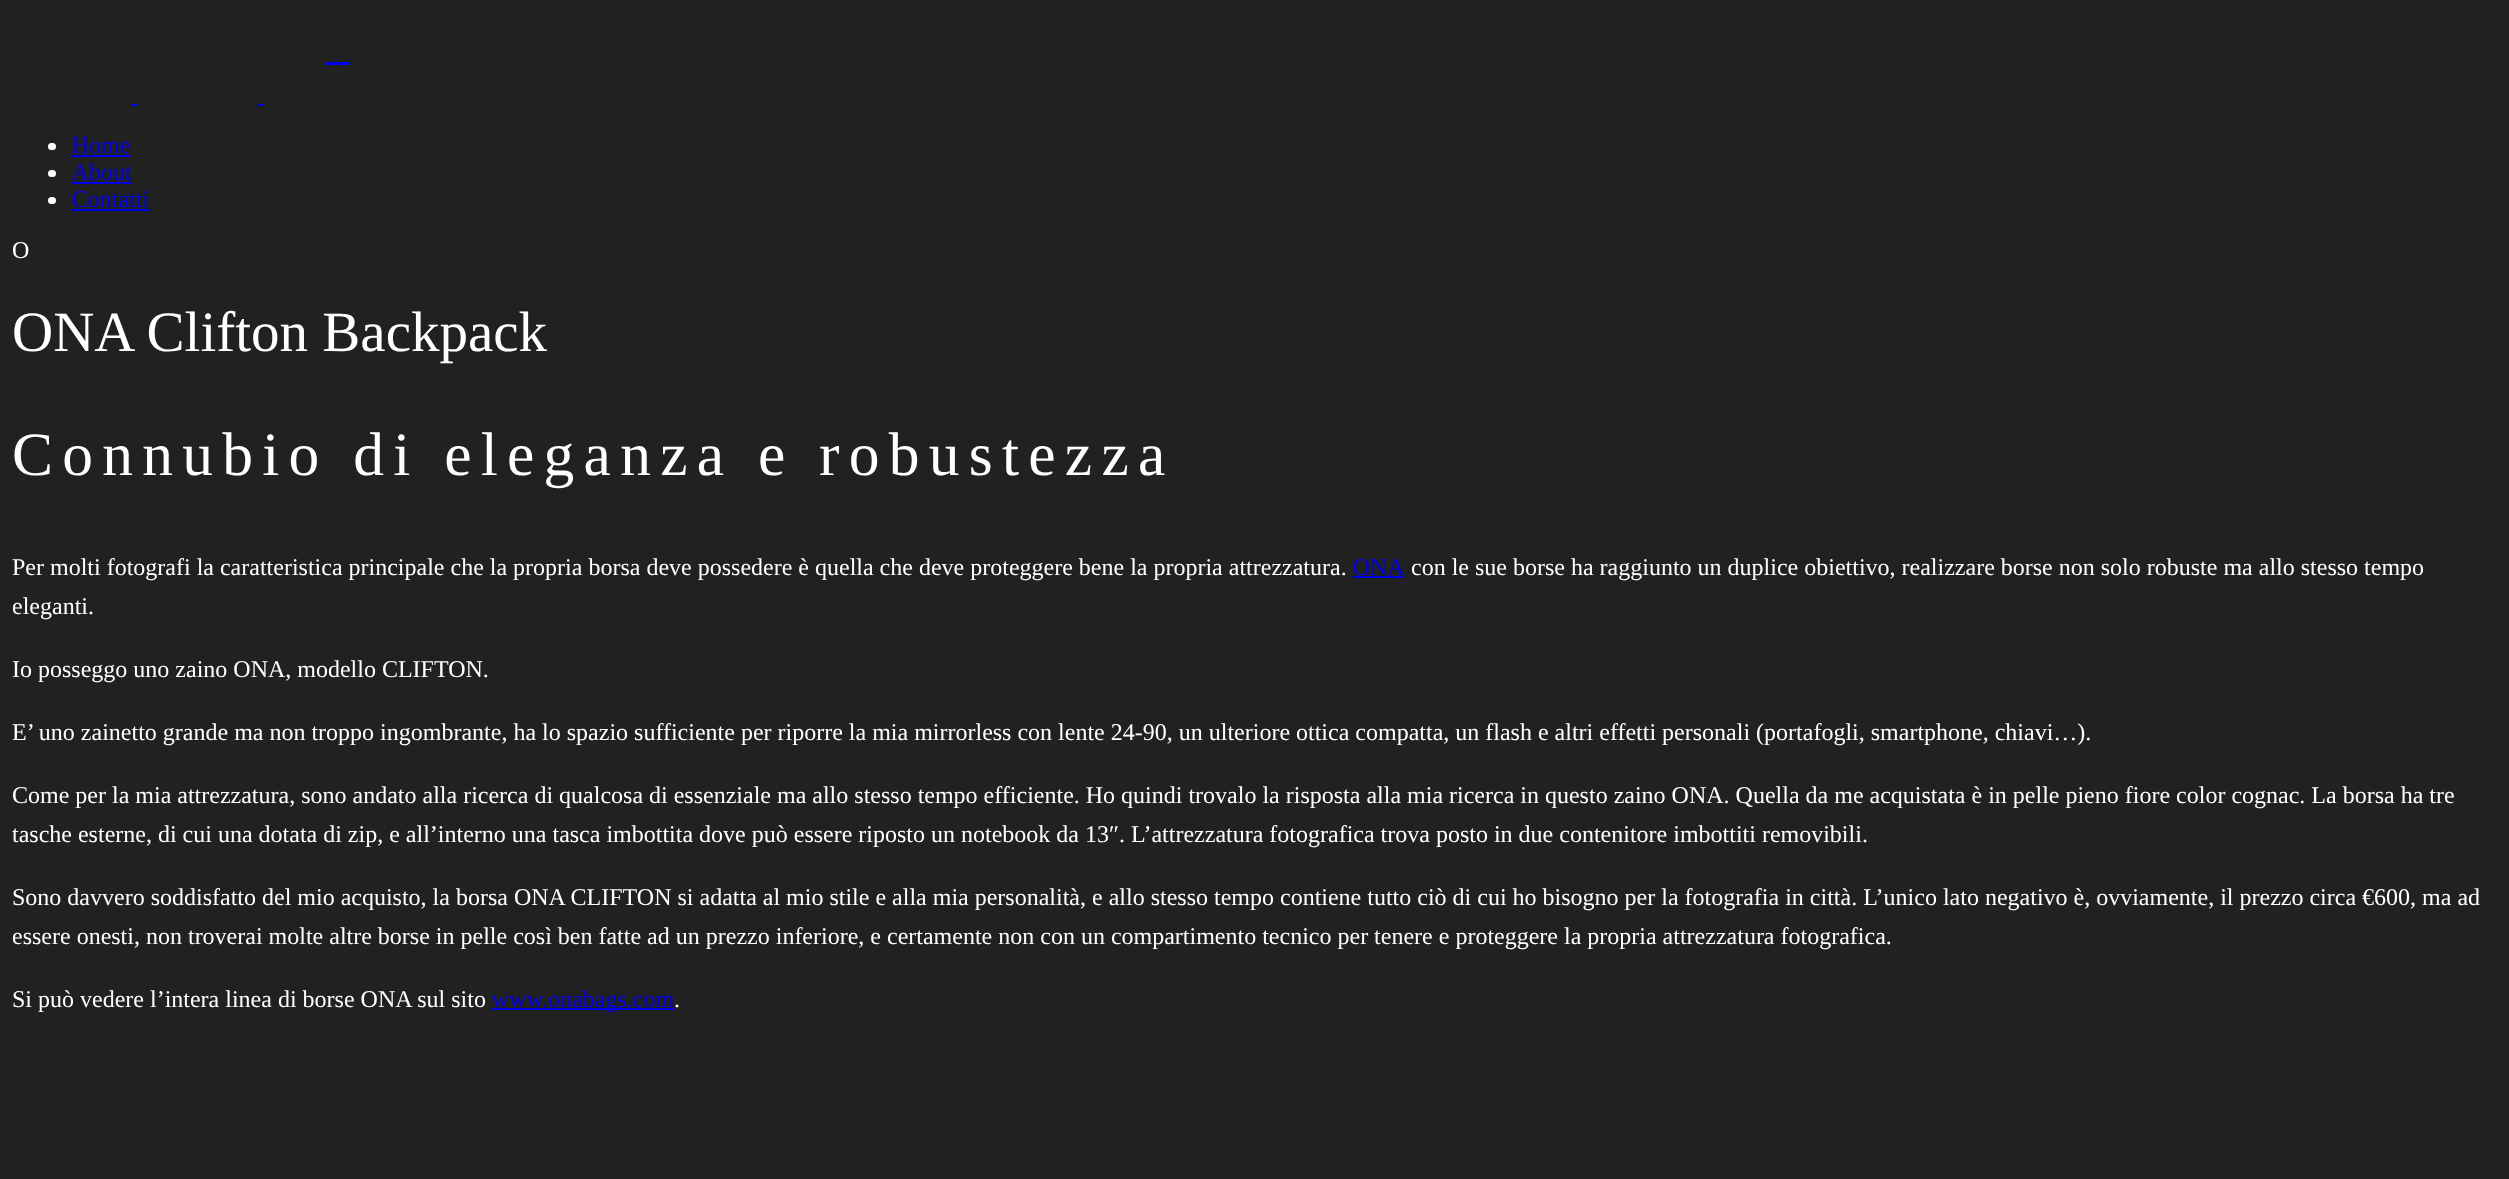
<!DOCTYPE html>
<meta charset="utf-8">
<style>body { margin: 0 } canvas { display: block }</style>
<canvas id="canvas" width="2509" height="1179"></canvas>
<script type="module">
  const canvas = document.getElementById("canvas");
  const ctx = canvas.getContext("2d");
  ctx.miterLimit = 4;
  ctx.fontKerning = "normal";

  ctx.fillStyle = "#212121";
  ctx.fillRect(0, 0, 2509, 1179);
  ctx.fillStyle = "#0000ee";
  ctx.fillRect(326, 62, 24, 3);
  ctx.fillRect(132, 104, 6, 2);
  ctx.fillRect(258, 104, 6, 2);
  ctx.fillStyle = "#ffffff";
  ctx.beginPath();
  ctx.roundRect(48, 143, 8, 7, 3.5);
  ctx.fill();
  ctx.font = "24px Liberation Serif";
  ctx.fillStyle = "#0000ee";
  ctx.fillText("Home", 72, 153);
  ctx.fillRect(72, 155, 59, 2);
  ctx.fillStyle = "#ffffff";
  ctx.beginPath();
  ctx.roundRect(48, 170, 8, 7, 3.5);
  ctx.fill();
  ctx.fillStyle = "#0000ee";
  ctx.fillText("About", 72, 180);
  ctx.fillRect(72, 182, 60, 2);
  ctx.fillStyle = "#ffffff";
  ctx.beginPath();
  ctx.roundRect(48, 197, 8, 7, 3.5);
  ctx.fill();
  ctx.fillStyle = "#0000ee";
  ctx.fillText("Contatti", 72, 207);
  ctx.fillRect(72, 209, 78, 2);
  ctx.fillStyle = "#ffffff";
  ctx.fillText("O", 12, 258);
  ctx.font = "57px Liberation Serif";
  ctx.fillText("ONA Clifton Backpack", 12, 351);
  ctx.letterSpacing = "9.25px";
  ctx.font = "61.5px Liberation Serif";
  ctx.fillText("Connubio di eleganza e robustezza", 12, 475);
  ctx.letterSpacing = "0px";
  ctx.font = "24px Liberation Serif";
  ctx.fillText("Per molti fotografi la caratteristica principale che la propria borsa deve possedere è quella che deve proteggere bene la propria attrezzatura.", 12, 575);
  ctx.fillStyle = "#0000ee";
  ctx.fillText("ONA", 1353, 575);
  ctx.fillRect(1353, 576, 51, 2);
  ctx.fillStyle = "#ffffff";
  ctx.fillText("con le sue borse ha raggiunto un duplice obiettivo, realizzare borse non solo robuste ma allo stesso tempo", 1411, 575);
  ctx.fillText("eleganti.", 12, 614);
  ctx.fillText("Io posseggo uno zaino ONA, modello CLIFTON.", 12, 677);
  ctx.fillText("E’ uno zainetto grande ma non troppo ingombrante, ha lo spazio sufficiente per riporre la mia mirrorless con lente 24-90, un ulteriore ottica compatta, un flash e altri effetti personali (portafogli, smartphone, chiavi…).", 12, 740);
  ctx.fillText("Come per la mia attrezzatura, sono andato alla ricerca di qualcosa di essenziale ma allo stesso tempo efficiente. Ho quindi trovalo la risposta alla mia ricerca in questo zaino ONA. Quella da me acquistata è in pelle pieno fiore color cognac. La borsa ha tre", 12, 803);
  ctx.fillText("tasche esterne, di cui una dotata di zip, e all’interno una tasca imbottita dove può essere riposto un notebook da 13″. L’attrezzatura fotografica trova posto in due contenitore imbottiti removibili.", 12, 842);
  ctx.fillText("Sono davvero soddisfatto del mio acquisto, la borsa ONA CLIFTON si adatta al mio stile e alla mia personalità, e allo stesso tempo contiene tutto ciò di cui ho bisogno per la fotografia in città. L’unico lato negativo è, ovviamente, il prezzo circa €600, ma ad", 12, 905);
  ctx.fillText("essere onesti, non troverai molte altre borse in pelle così ben fatte ad un prezzo inferiore, e certamente non con un compartimento tecnico per tenere e proteggere la propria attrezzatura fotografica.", 12, 944);
  ctx.fillText("Si può vedere l’intera linea di borse ONA sul sito", 12, 1007);
  ctx.fillStyle = "#0000ee";
  ctx.fillRect(492, 1008, 183, 2);
  ctx.fillText("www.onabags.com", 492, 1007);
  ctx.fillStyle = "#ffffff";
  ctx.fillText(".", 674, 1007);
</script>
